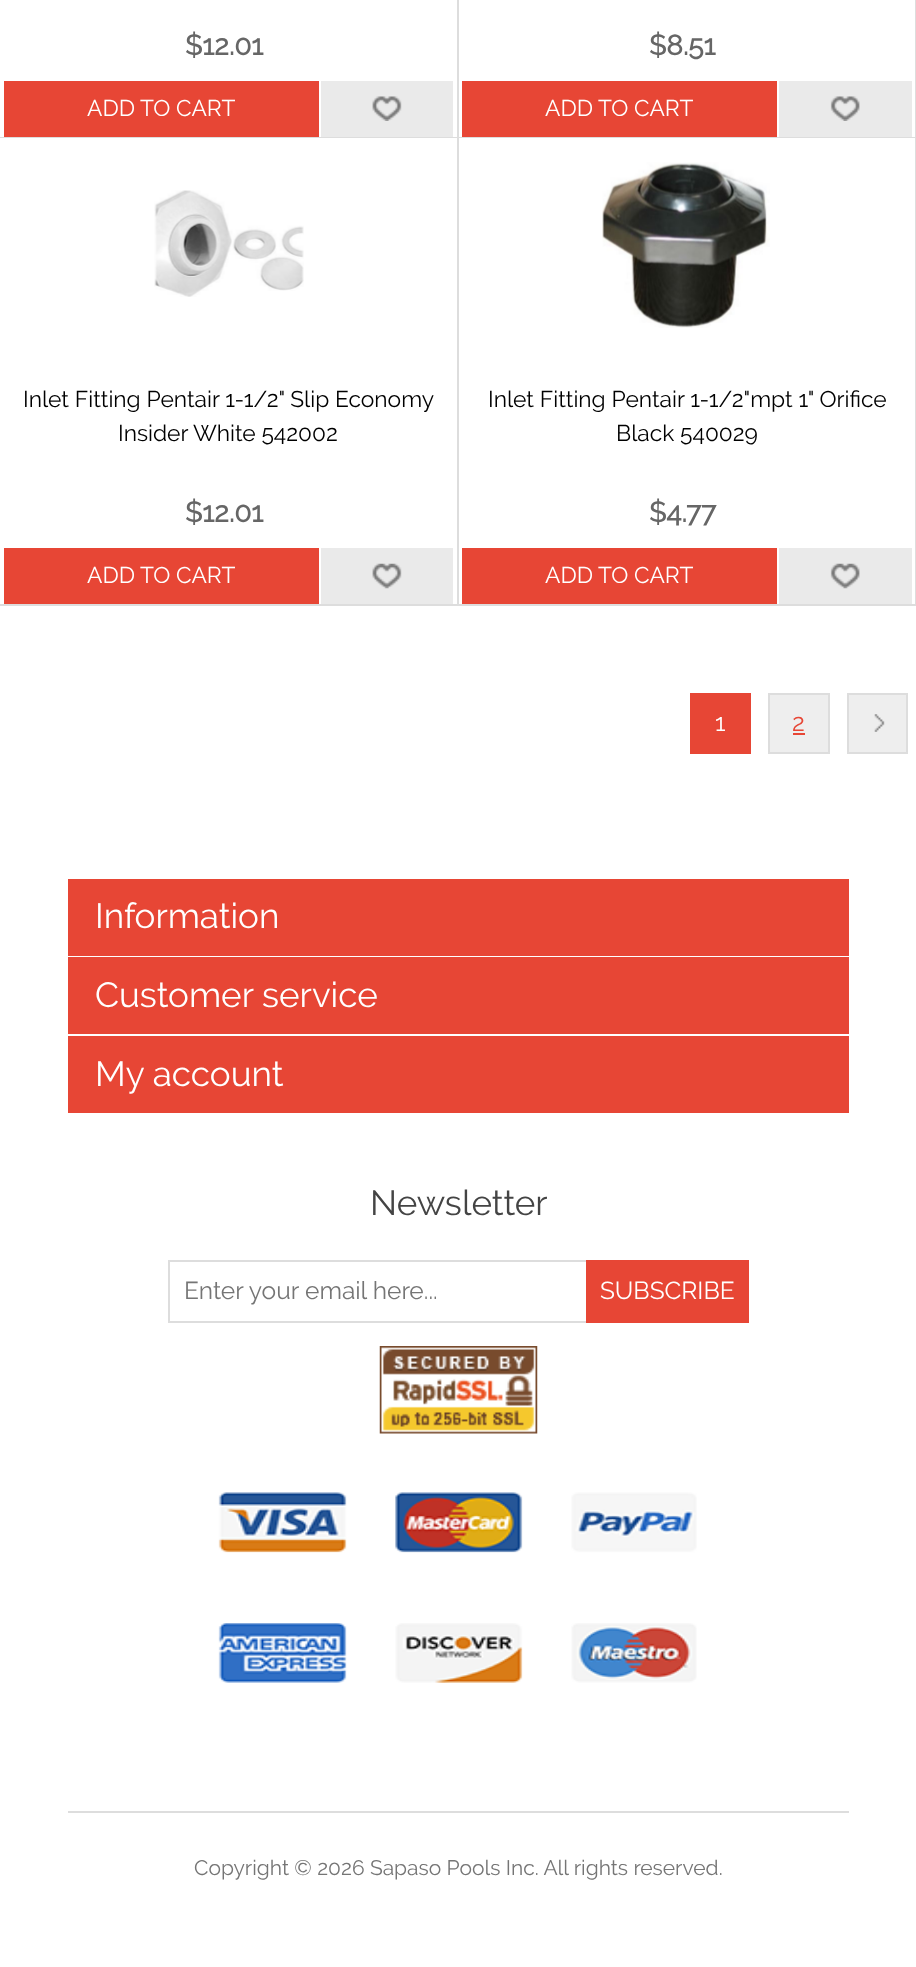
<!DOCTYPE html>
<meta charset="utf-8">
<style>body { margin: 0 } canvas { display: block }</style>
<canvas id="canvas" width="916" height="1967"></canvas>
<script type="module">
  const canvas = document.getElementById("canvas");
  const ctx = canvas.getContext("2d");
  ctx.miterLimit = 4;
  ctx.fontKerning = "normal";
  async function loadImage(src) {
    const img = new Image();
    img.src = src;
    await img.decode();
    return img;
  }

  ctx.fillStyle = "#ffffff";
  ctx.fillRect(0, 0, 916, 1967);
  ctx.fillStyle = "#dddddd";
  ctx.fillRect(457, 0, 2, 606);
  ctx.fillRect(0, 137, 459, 1);
  ctx.font = "bold 28px Raleway";
  ctx.fillStyle = "#666666";
  ctx.fillText("$12.01", 185, 55);
  ctx.fillStyle = "#e74635";
  ctx.fillRect(4, 81, 315, 56);
  ctx.font = "22.75px Raleway";
  ctx.fillStyle = "#ffffff";
  ctx.fillText("ADD TO CART", 87, 116);
  ctx.fillStyle = "#eaeaea";
  ctx.fillRect(321, 81, 132, 56);
  ctx.drawImage(await loadImage("img1.png"), 372, 96, 30, 25);
  ctx.fillStyle = "#dddddd";
  ctx.fillRect(915, 0, 1, 606);
  ctx.fillRect(459, 137, 457, 1);
  ctx.font = "bold 28px Raleway";
  ctx.fillStyle = "#666666";
  ctx.fillText("$8.51", 649, 55);
  ctx.fillStyle = "#e74635";
  ctx.fillRect(462, 81, 315, 56);
  ctx.font = "22.75px Raleway";
  ctx.fillStyle = "#ffffff";
  ctx.fillText("ADD TO CART", 545, 116);
  ctx.fillStyle = "#eaeaea";
  ctx.fillRect(779, 81, 133, 56);
  ctx.drawImage(await loadImage("img2.png"), 830, 96, 30, 25);
  ctx.fillStyle = "#dddddd";
  ctx.fillRect(0, 604, 916, 2);
  ctx.drawImage(await loadImage("img3.png"), 154, 190, 150, 107);
  ctx.fillStyle = "#000000";
  ctx.fillText("Inlet Fitting Pentair 1-1/2\" Slip Economy", 23, 407);
  ctx.fillText("Insider White 542002", 118, 441);
  ctx.font = "bold 28px Raleway";
  ctx.fillStyle = "#666666";
  ctx.fillText("$12.01", 185, 522);
  ctx.fillStyle = "#e74635";
  ctx.fillRect(4, 548, 315, 56);
  ctx.font = "22.75px Raleway";
  ctx.fillStyle = "#ffffff";
  ctx.fillText("ADD TO CART", 87, 583);
  ctx.fillStyle = "#eaeaea";
  ctx.fillRect(321, 548, 132, 56);
  ctx.drawImage(await loadImage("img4.png"), 372, 563, 30, 26);
  ctx.drawImage(await loadImage("img5.png"), 602, 162, 168, 166);
  ctx.fillStyle = "#000000";
  ctx.fillText("Inlet Fitting Pentair 1-1/2\"mpt 1\" Orifice", 488, 407);
  ctx.fillText("Black 540029", 616, 441);
  ctx.font = "bold 28px Raleway";
  ctx.fillStyle = "#666666";
  ctx.fillText("$4.77", 649, 522);
  ctx.fillStyle = "#e74635";
  ctx.fillRect(462, 548, 315, 56);
  ctx.font = "22.75px Raleway";
  ctx.fillStyle = "#ffffff";
  ctx.fillText("ADD TO CART", 545, 583);
  ctx.fillStyle = "#eaeaea";
  ctx.fillRect(779, 548, 133, 56);
  ctx.drawImage(await loadImage("img6.png"), 830, 563, 30, 26);
  ctx.fillStyle = "#e74635";
  ctx.fillRect(690, 693, 61, 61);
  ctx.font = "24.5px Raleway";
  ctx.fillStyle = "#ffffff";
  ctx.fillText("1", 715, 731);
  ctx.fillStyle = "#eeeeee";
  ctx.beginPath();
  ctx.rect(769, 694, 60, 59);
  ctx.fill();
  ctx.strokeStyle = "#dddddd";
  ctx.lineWidth = 2;
  ctx.stroke();
  ctx.fillStyle = "#e74635";
  ctx.fillText("2", 792, 731);
  ctx.fillRect(793, 733, 12, 2);
  ctx.fillStyle = "#eeeeee";
  ctx.fillRect(849, 695, 57, 57);
  ctx.drawImage(await loadImage("img7.png"), 874, 714, 11, 18);
  ctx.strokeRect(848, 694, 59, 59);
  ctx.fillStyle = "#dddddd";
  ctx.fillRect(68, 1811, 781, 2);
  ctx.fillStyle = "#e74635";
  ctx.fillRect(68, 879, 781, 77);
  ctx.font = "35px Raleway";
  ctx.fillStyle = "#ffffff";
  ctx.fillText("Information", 95, 928);
  ctx.fillStyle = "#e74635";
  ctx.fillRect(68, 957, 781, 77);
  ctx.fillStyle = "#ffffff";
  ctx.fillText("Customer service", 95, 1007);
  ctx.fillStyle = "#e74635";
  ctx.fillRect(68, 1036, 781, 77);
  ctx.fillStyle = "#ffffff";
  ctx.fillText("My account", 95, 1086);
  ctx.fillStyle = "#444444";
  ctx.fillText("Newsletter", 370, 1215);
  ctx.strokeRect(169, 1261, 418, 61);
  ctx.font = "24.5px Raleway";
  ctx.fillStyle = "#757575";
  ctx.fillText("Enter your email here...", 184, 1299);
  ctx.fillStyle = "#e74635";
  ctx.fillRect(586, 1260, 163, 63);
  ctx.fillStyle = "#ffffff";
  ctx.fillText("SUBSCRIBE", 600, 1299);
  ctx.drawImage(await loadImage("img8.png"), 379, 1346, 159, 88);
  ctx.drawImage(await loadImage("img9.png"), 218, 1492, 479, 191);
  ctx.font = "21px Raleway";
  ctx.fillStyle = "#757575";
  ctx.fillText("Copyright © 2026 Sapaso Pools Inc. All rights reserved.", 194, 1875);
</script>
